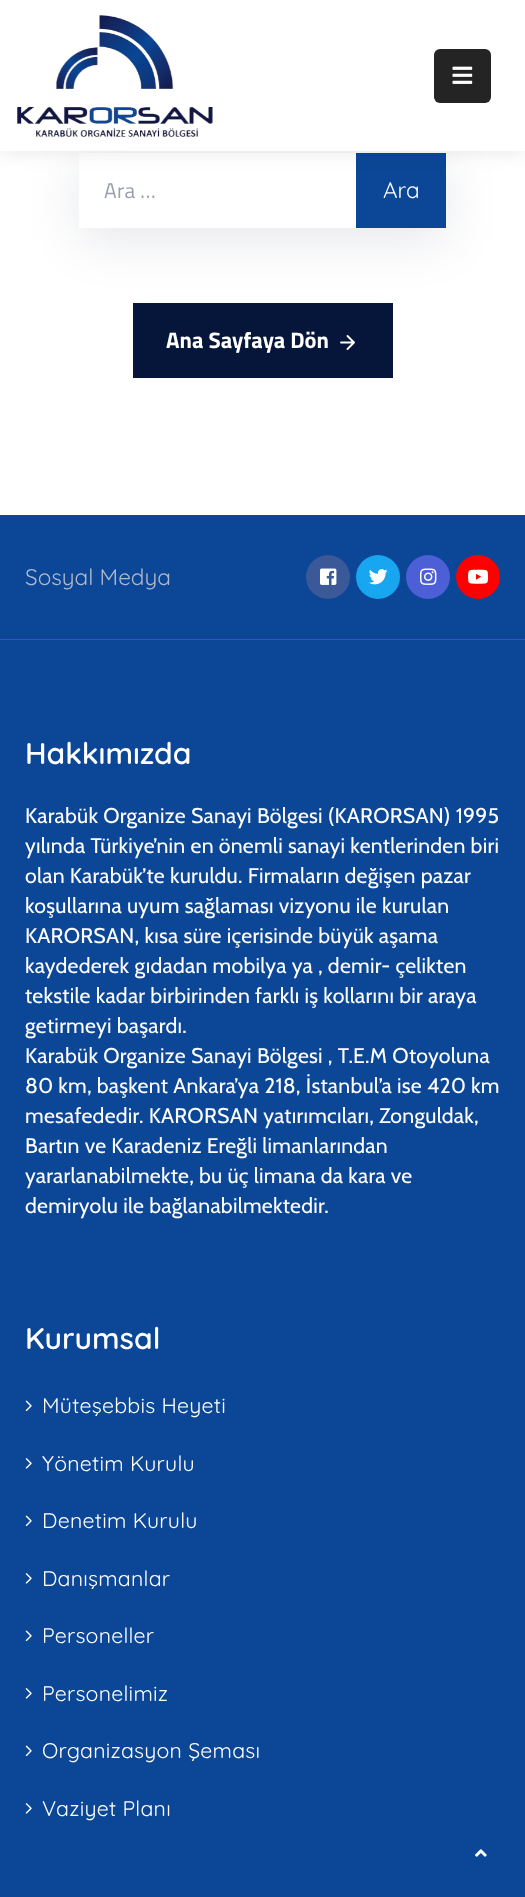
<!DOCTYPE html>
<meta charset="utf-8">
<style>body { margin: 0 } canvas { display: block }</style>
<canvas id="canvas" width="525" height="1897"></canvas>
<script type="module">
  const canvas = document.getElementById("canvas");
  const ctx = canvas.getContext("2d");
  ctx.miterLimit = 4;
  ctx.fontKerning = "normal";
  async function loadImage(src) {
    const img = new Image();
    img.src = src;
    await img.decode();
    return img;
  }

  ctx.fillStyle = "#ffffff";
  ctx.fillRect(0, 0, 525, 1897);
  ctx.fillStyle = "rgba(6, 22, 58, 0.1)";
  ctx.filter = "blur(25px)";
  ctx.beginPath();
  ctx.rect(79, 165, 367, 75);
  ctx.fill();
  ctx.filter = "none";
  ctx.fillStyle = "#ffffff";
  ctx.fillRect(79, 153, 277, 75);
  ctx.fillStyle = "#0c4797";
  ctx.fillRect(356, 153, 90, 75);
  ctx.fillStyle = "rgba(0, 0, 0, 0.1)";
  ctx.filter = "blur(9.5px)";
  ctx.beginPath();
  ctx.rect(0, 0, 525, 151);
  ctx.fill();
  ctx.filter = "none";
  ctx.fillStyle = "#ffffff";
  ctx.fillRect(0, 0, 525, 151);
  ctx.drawImage(await loadImage("img1.png"), 17, 15, 196, 122);
  ctx.fillStyle = "#242424";
  ctx.beginPath();
  ctx.roundRect(434, 49, 57, 54, 6);
  ctx.fill();
  ctx.drawImage(await loadImage("img2.png"), 452, 66, 21, 18);
  ctx.letterSpacing = "0.25px";
  ctx.font = "21.25px Titillium Web";
  ctx.fillStyle = "#999eac";
  ctx.fillText("Ara …", 104, 198);
  ctx.letterSpacing = "0px";
  ctx.font = "22.5px Quicksand";
  ctx.fillStyle = "#ffffff";
  ctx.fillText("Ara", 383, 198);
  ctx.fillStyle = "#06163a";
  ctx.fillRect(133, 303, 260, 75);
  ctx.font = "bold 22.5px Titillium Web";
  ctx.fillStyle = "#ffffff";
  ctx.fillText("Ana Sayfaya Dön", 166, 348);
  ctx.beginPath();
  ctx.moveTo(341, 342.5);
  ctx.lineTo(354, 342.5);
  ctx.moveTo(347.5, 336);
  ctx.lineTo(354, 342.5);
  ctx.lineTo(347.5, 349);
  ctx.strokeStyle = "#ffffff";
  ctx.lineWidth = 1.9;
  ctx.lineCap = "round";
  ctx.lineJoin = "round";
  ctx.stroke();
  ctx.fillStyle = "#0c4797";
  ctx.fillRect(0, 515, 525, 124);
  ctx.fillStyle = "#54595f";
  ctx.fillRect(0, 639, 525, 1);
  ctx.font = "22.5px Quicksand";
  ctx.fillStyle = "#b0b8ca";
  ctx.fillText("Sosyal Medya", 25, 585);
  ctx.fillStyle = "#3b5998";
  ctx.beginPath();
  ctx.arc(328, 577, 22, 0, Math.PI * 2);
  ctx.fill();
  ctx.drawImage(await loadImage("img3.png"), 320, 568, 17, 17);
  ctx.fillStyle = "#18a6f0";
  ctx.beginPath();
  ctx.arc(378, 577, 22, 0, Math.PI * 2);
  ctx.fill();
  ctx.drawImage(await loadImage("img4.png"), 369, 569, 19, 16);
  ctx.fillStyle = "#4c5fd7";
  ctx.beginPath();
  ctx.arc(428, 577, 22, 0, Math.PI * 2);
  ctx.fill();
  ctx.drawImage(await loadImage("img5.png"), 420, 568, 17, 17);
  ctx.fillStyle = "#ff0000";
  ctx.beginPath();
  ctx.arc(478, 577, 22, 0, Math.PI * 2);
  ctx.fill();
  ctx.drawImage(await loadImage("img6.png"), 468, 569, 21, 15);
  ctx.fillStyle = "#0c4797";
  ctx.fillRect(0, 640, 525, 1257);
  ctx.font = "600 30px Quicksand";
  ctx.fillStyle = "#ffffff";
  ctx.fillText("Hakkımızda", 25, 764);
  ctx.letterSpacing = "0.25px";
  ctx.font = "21.25px Cabin";
  ctx.fillText("Karabük Organize Sanayi Bölgesi (KARORSAN) 1995", 25, 823);
  ctx.fillText("yılında Türkiye’nin en önemli sanayi kentlerinden biri", 25, 853);
  ctx.fillText("olan Karabük’te kuruldu. Firmaların değişen pazar", 25, 883);
  ctx.fillText("koşullarına uyum sağlaması vizyonu ile kurulan", 25, 913);
  ctx.fillText("KARORSAN, kısa süre içerisinde büyük aşama", 25, 943);
  ctx.fillText("kaydederek gıdadan mobilya ya , demir- çelikten", 25, 973);
  ctx.fillText("tekstile kadar birbirinden farklı iş kollarını bir araya", 25, 1003);
  ctx.fillText("getirmeyi başardı.", 25, 1033);
  ctx.fillText("Karabük Organize Sanayi Bölgesi , T.E.M Otoyoluna", 25, 1063);
  ctx.fillText("80 km, başkent Ankara’ya 218, İstanbul’a ise 420 km", 25, 1093);
  ctx.fillText("mesafededir. KARORSAN yatırımcıları, Zonguldak,", 25, 1123);
  ctx.fillText("Bartın ve Karadeniz Ereğli limanlarından", 25, 1153);
  ctx.fillText("yararlanabilmekte, bu üç limana da kara ve", 25, 1183);
  ctx.fillText("demiryolu ile bağlanabilmektedir.", 25, 1213);
  ctx.letterSpacing = "0px";
  ctx.font = "600 30px Quicksand";
  ctx.fillText("Kurumsal", 25, 1349);
  ctx.drawImage(await loadImage("img7.png"), 25, 1400, 7, 12);
  ctx.letterSpacing = "0.25px";
  ctx.font = "21.25px Quicksand";
  ctx.fillText("Müteşebbis Heyeti", 42, 1413);
  ctx.drawImage(await loadImage("img8.png"), 25, 1458, 7, 11);
  ctx.fillText("Yönetim Kurulu", 42, 1471);
  ctx.drawImage(await loadImage("img7.png"), 25, 1515, 7, 12);
  ctx.fillText("Denetim Kurulu", 42, 1528);
  ctx.drawImage(await loadImage("img8.png"), 25, 1573, 7, 11);
  ctx.fillText("Danışmanlar", 42, 1586);
  ctx.drawImage(await loadImage("img7.png"), 25, 1630, 7, 12);
  ctx.fillText("Personeller", 42, 1643);
  ctx.drawImage(await loadImage("img8.png"), 25, 1688, 7, 11);
  ctx.fillText("Personelimiz", 42, 1701);
  ctx.drawImage(await loadImage("img7.png"), 25, 1745, 7, 12);
  ctx.fillText("Organizasyon Şeması", 42, 1758);
  ctx.drawImage(await loadImage("img8.png"), 25, 1803, 7, 11);
  ctx.fillText("Vaziyet Planı", 42, 1816);
  ctx.drawImage(await loadImage("img9.png"), 475, 1849, 12, 8);
</script>
